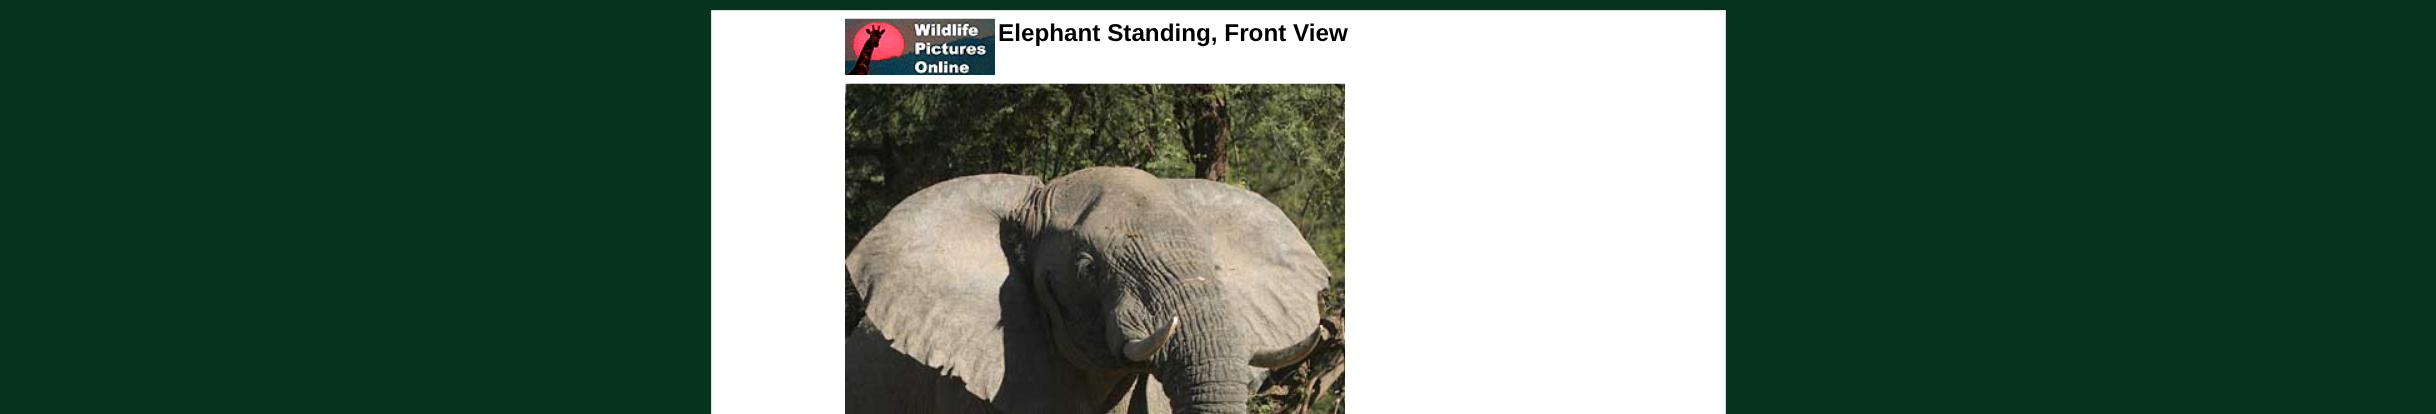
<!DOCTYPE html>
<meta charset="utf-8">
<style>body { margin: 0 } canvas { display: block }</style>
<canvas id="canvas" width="2436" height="414"></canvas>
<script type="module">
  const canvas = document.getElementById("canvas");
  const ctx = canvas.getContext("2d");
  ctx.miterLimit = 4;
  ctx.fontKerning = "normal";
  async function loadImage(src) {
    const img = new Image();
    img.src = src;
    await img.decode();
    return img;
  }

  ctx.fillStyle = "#06341d";
  ctx.fillRect(0, 0, 2436, 414);
  ctx.fillStyle = "#ffffff";
  ctx.beginPath();
  ctx.rect(711.5, 10.5, 1014, 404);
  ctx.fill();
  ctx.strokeStyle = "#e0e0e0";
  ctx.stroke();
  ctx.drawImage(await loadImage("img1.png"), 845, 18, 150, 57);
  ctx.font = "bold 24.25px Liberation Sans";
  ctx.fillStyle = "#000000";
  ctx.fillText("Elephant Standing, Front View", 998, 41);
  ctx.drawImage(await loadImage("img2.png"), 845, 83, 500, 331);
</script>
